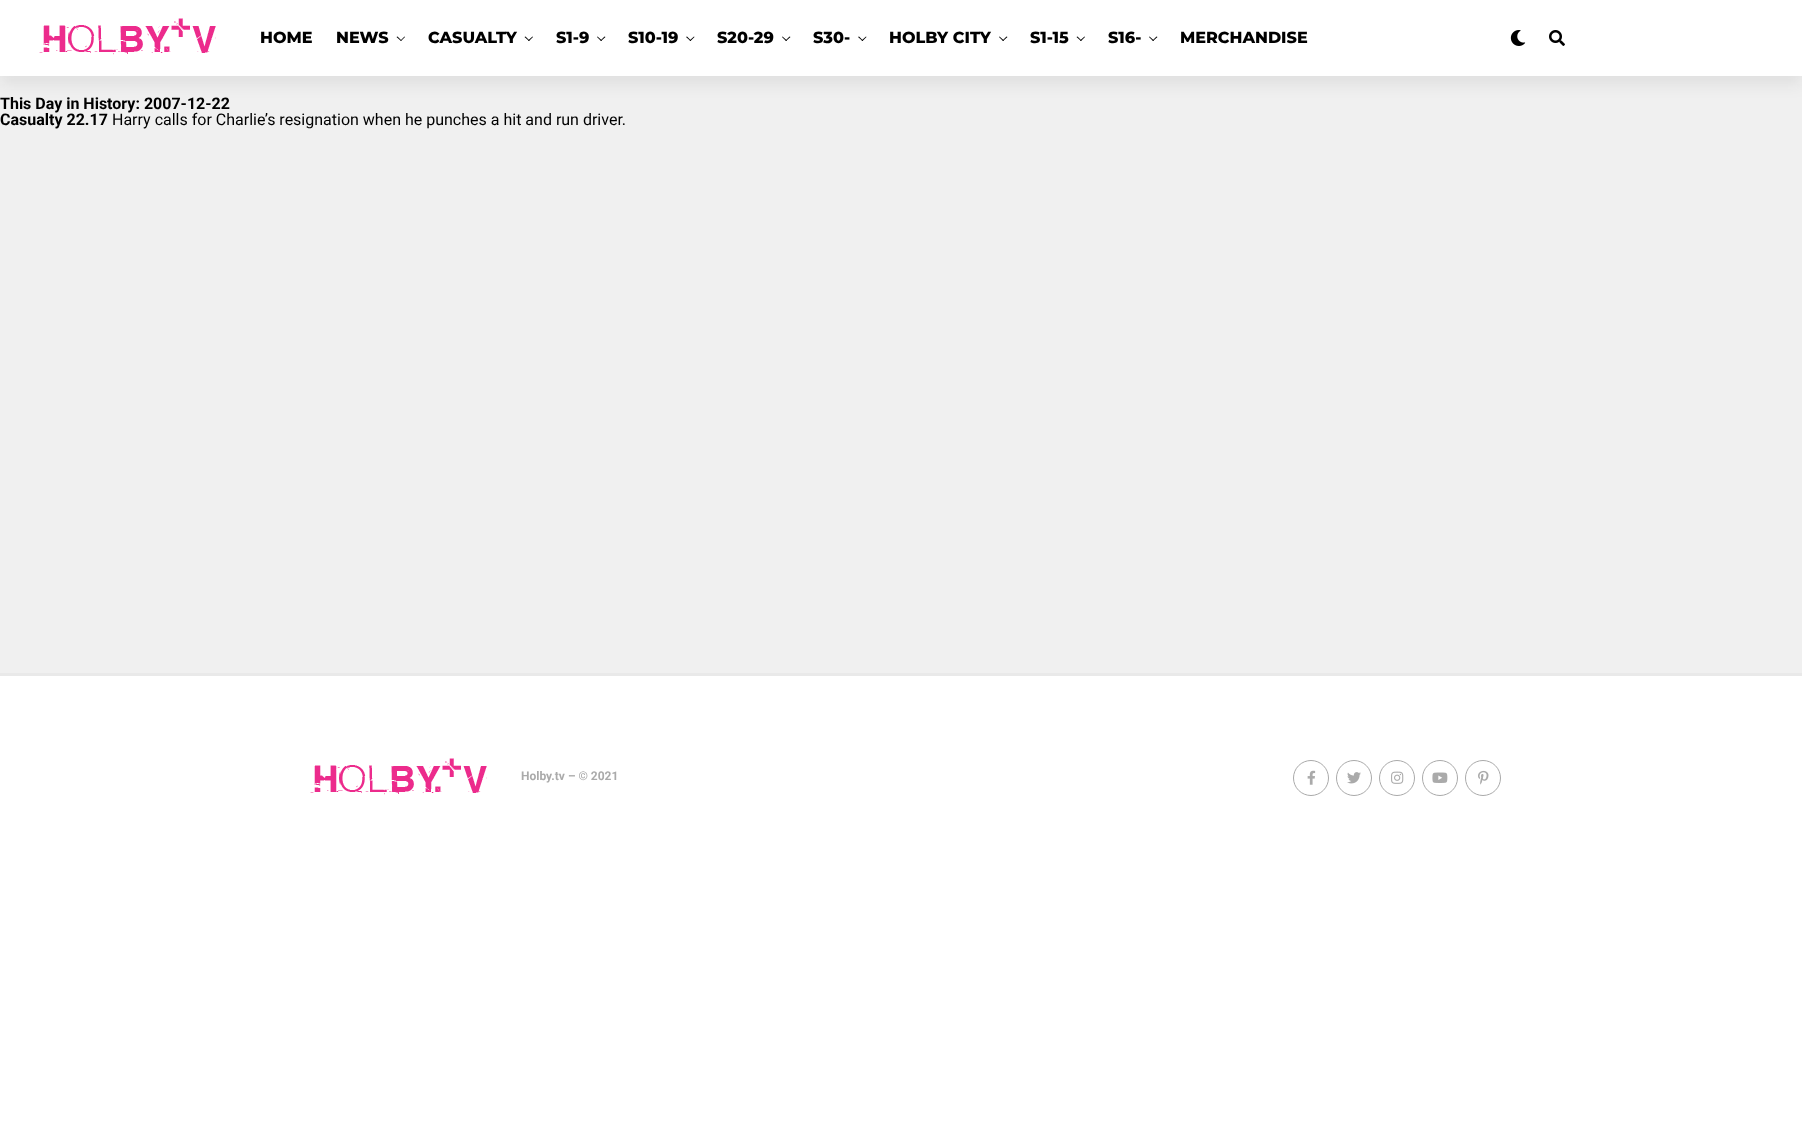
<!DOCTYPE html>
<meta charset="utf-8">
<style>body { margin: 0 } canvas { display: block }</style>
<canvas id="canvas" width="1802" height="1142"></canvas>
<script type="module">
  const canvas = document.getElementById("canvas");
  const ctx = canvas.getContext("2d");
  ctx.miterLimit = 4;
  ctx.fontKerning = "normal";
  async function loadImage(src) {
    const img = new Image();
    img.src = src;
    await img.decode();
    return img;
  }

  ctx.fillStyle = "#ffffff";
  ctx.fillRect(0, 0, 1802, 1142);
  ctx.fillStyle = "#f0f0f0";
  ctx.fillRect(0, 76, 1802, 597);
  ctx.fillStyle = "rgba(21, 21, 30, 0.08)";
  ctx.filter = "blur(8px)";
  ctx.beginPath();
  ctx.rect(0, 8, 1802, 76);
  ctx.fill();
  ctx.filter = "none";
  ctx.fillStyle = "#ffffff";
  ctx.fillRect(0, 0, 1802, 76);
  ctx.drawImage(await loadImage("img1.png"), 39, 18, 177, 37);
  ctx.font = "800 16px Montserrat";
  ctx.fillStyle = "#000000";
  ctx.fillText("HOME", 260, 43);
  ctx.fillText("NEWS", 336, 43);
  ctx.beginPath();
  ctx.moveTo(404.5, 36.5);
  ctx.lineTo(405, 37);
  ctx.lineTo(401, 41);
  ctx.lineTo(400.5, 40.5);
  ctx.closePath();
  ctx.fill();
  ctx.beginPath();
  ctx.moveTo(397.5, 36.5);
  ctx.lineTo(401.5, 40.5);
  ctx.lineTo(401, 41);
  ctx.lineTo(396.5, 37);
  ctx.closePath();
  ctx.fill();
  ctx.fillText("CASUALTY", 428, 43);
  ctx.beginPath();
  ctx.moveTo(532.5, 36.5);
  ctx.lineTo(533, 37);
  ctx.lineTo(529, 41);
  ctx.lineTo(528, 40.5);
  ctx.closePath();
  ctx.fill();
  ctx.beginPath();
  ctx.moveTo(525.5, 36.5);
  ctx.lineTo(529.5, 40.5);
  ctx.lineTo(529, 41);
  ctx.lineTo(524.5, 37);
  ctx.closePath();
  ctx.fill();
  ctx.fillText("S1-9", 556, 43);
  ctx.beginPath();
  ctx.moveTo(604.5, 36.5);
  ctx.lineTo(605.5, 37);
  ctx.lineTo(601, 41);
  ctx.lineTo(600.5, 40.5);
  ctx.closePath();
  ctx.fill();
  ctx.beginPath();
  ctx.moveTo(597.5, 36.5);
  ctx.lineTo(602, 40.5);
  ctx.lineTo(601, 41);
  ctx.lineTo(597, 37);
  ctx.closePath();
  ctx.fill();
  ctx.fillText("S10-19", 628, 43);
  ctx.beginPath();
  ctx.moveTo(694, 36.5);
  ctx.lineTo(694.5, 37);
  ctx.lineTo(690.5, 41);
  ctx.lineTo(689.5, 40.5);
  ctx.closePath();
  ctx.fill();
  ctx.beginPath();
  ctx.moveTo(687, 36.5);
  ctx.lineTo(691, 40.5);
  ctx.lineTo(690.5, 41);
  ctx.lineTo(686, 37);
  ctx.closePath();
  ctx.fill();
  ctx.fillText("S20-29", 717, 43);
  ctx.beginPath();
  ctx.moveTo(789.5, 36.5);
  ctx.lineTo(790.5, 37);
  ctx.lineTo(786, 41);
  ctx.lineTo(785.5, 40.5);
  ctx.closePath();
  ctx.fill();
  ctx.beginPath();
  ctx.moveTo(782.5, 36.5);
  ctx.lineTo(787, 40.5);
  ctx.lineTo(786, 41);
  ctx.lineTo(782, 37);
  ctx.closePath();
  ctx.fill();
  ctx.fillText("S30-", 813, 43);
  ctx.beginPath();
  ctx.moveTo(866, 36.5);
  ctx.lineTo(866.5, 37);
  ctx.lineTo(862.5, 41);
  ctx.lineTo(861.5, 40.5);
  ctx.closePath();
  ctx.fill();
  ctx.beginPath();
  ctx.moveTo(859, 36.5);
  ctx.lineTo(863, 40.5);
  ctx.lineTo(862.5, 41);
  ctx.lineTo(858, 37);
  ctx.closePath();
  ctx.fill();
  ctx.fillText("HOLBY CITY", 889, 43);
  ctx.beginPath();
  ctx.moveTo(1006.5, 36.5);
  ctx.lineTo(1007.5, 37);
  ctx.lineTo(1003, 41);
  ctx.lineTo(1002.5, 40.5);
  ctx.closePath();
  ctx.fill();
  ctx.beginPath();
  ctx.moveTo(999.5, 36.5);
  ctx.lineTo(1004, 40.5);
  ctx.lineTo(1003, 41);
  ctx.lineTo(999, 37);
  ctx.closePath();
  ctx.fill();
  ctx.fillText("S1-15", 1030, 43);
  ctx.beginPath();
  ctx.moveTo(1084.5, 36.5);
  ctx.lineTo(1085, 37);
  ctx.lineTo(1081, 41);
  ctx.lineTo(1080, 40.5);
  ctx.closePath();
  ctx.fill();
  ctx.beginPath();
  ctx.moveTo(1077.5, 36.5);
  ctx.lineTo(1081.5, 40.5);
  ctx.lineTo(1081, 41);
  ctx.lineTo(1076.5, 37);
  ctx.closePath();
  ctx.fill();
  ctx.fillText("S16-", 1108, 43);
  ctx.beginPath();
  ctx.moveTo(1156.5, 36.5);
  ctx.lineTo(1157.5, 37);
  ctx.lineTo(1153, 41);
  ctx.lineTo(1152.5, 40.5);
  ctx.closePath();
  ctx.fill();
  ctx.beginPath();
  ctx.moveTo(1149.5, 36.5);
  ctx.lineTo(1154, 40.5);
  ctx.lineTo(1153, 41);
  ctx.lineTo(1149, 37);
  ctx.closePath();
  ctx.fill();
  ctx.fillText("MERCHANDISE", 1180, 43);
  ctx.drawImage(await loadImage("img2.png"), 1510, 30, 16, 16);
  ctx.drawImage(await loadImage("img3.png"), 1549, 30, 16, 16);
  ctx.font = "bold 16px Roboto";
  ctx.fillText("This Day in History: 2007-12-22", 0, 109);
  ctx.fillText("Casualty 22.17", 0, 125);
  ctx.font = "16px Roboto";
  ctx.fillText("Harry calls for Charlie’s resignation when he punches a hit and run driver.", 112, 125);
  ctx.fillStyle = "#e9e9e9";
  ctx.fillRect(0, 673, 1802, 3);
  ctx.drawImage(await loadImage("img1.png"), 310, 758, 177, 37);
  ctx.font = "bold 12px Roboto";
  ctx.fillStyle = "#aaaaaa";
  ctx.fillText("Holby.tv – © 2021", 521, 780);
  ctx.beginPath();
  ctx.arc(1311, 778, 17.5, 0, Math.PI * 2);
  ctx.strokeStyle = "#aaaaaa";
  ctx.stroke();
  ctx.drawImage(await loadImage("img4.png"), 1307, 770, 9, 15);
  ctx.beginPath();
  ctx.arc(1354, 778, 17.5, 0, Math.PI * 2);
  ctx.stroke();
  ctx.drawImage(await loadImage("img5.png"), 1347, 772, 14, 12);
  ctx.beginPath();
  ctx.arc(1397, 778, 17.5, 0, Math.PI * 2);
  ctx.stroke();
  ctx.drawImage(await loadImage("img6.png"), 1391, 771, 13, 13);
  ctx.beginPath();
  ctx.arc(1440, 778, 17.5, 0, Math.PI * 2);
  ctx.stroke();
  ctx.drawImage(await loadImage("img7.png"), 1432, 772, 16, 11);
  ctx.beginPath();
  ctx.arc(1483, 778, 17.5, 0, Math.PI * 2);
  ctx.stroke();
  ctx.drawImage(await loadImage("img8.png"), 1478, 770, 11, 15);
</script>
